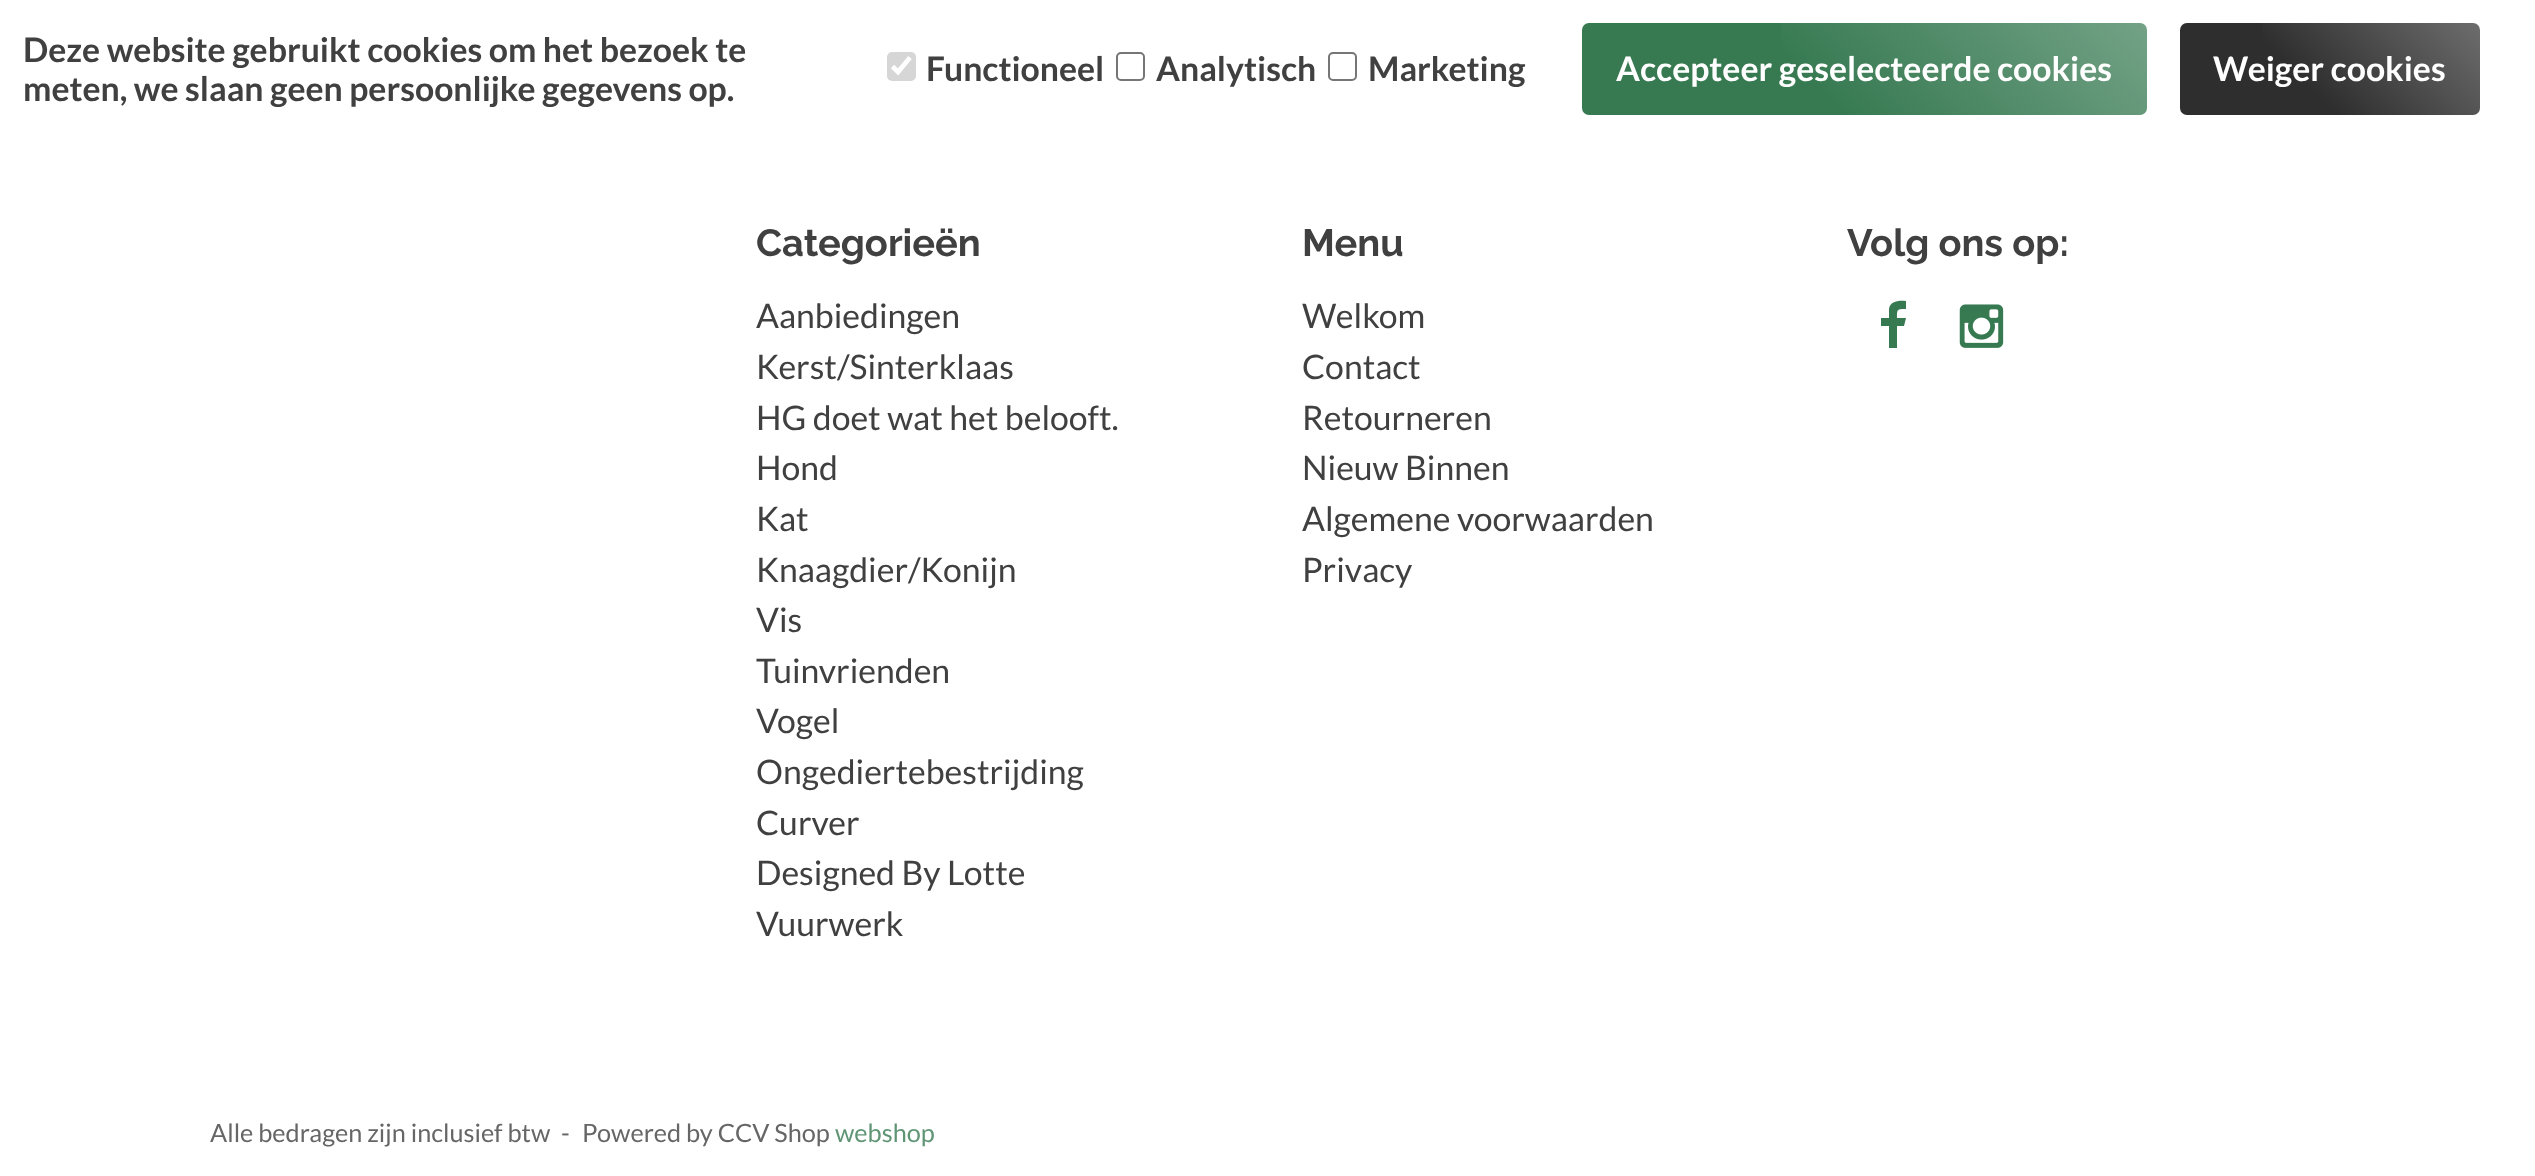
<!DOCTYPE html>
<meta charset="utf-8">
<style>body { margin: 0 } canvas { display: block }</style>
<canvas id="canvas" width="2535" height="1176"></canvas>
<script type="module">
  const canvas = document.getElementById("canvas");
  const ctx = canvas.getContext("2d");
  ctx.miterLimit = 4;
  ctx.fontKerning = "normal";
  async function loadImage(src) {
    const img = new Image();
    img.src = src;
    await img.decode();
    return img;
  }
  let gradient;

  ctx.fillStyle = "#ffffff";
  ctx.fillRect(0, 0, 2535, 1176);
  ctx.font = "bold 33.75px Lato";
  ctx.fillStyle = "#404040";
  ctx.fillText("Deze website gebruikt cookies om het bezoek te", 23, 62);
  ctx.fillText("meten, we slaan geen persoonlijke gegevens op.", 23, 101);
  ctx.fillStyle = "#d6d6d6";
  ctx.beginPath();
  ctx.roundRect(887, 52, 29, 29, 5);
  ctx.fill();
  ctx.beginPath();
  ctx.moveTo(892.5, 66.5);
  ctx.lineTo(898, 72);
  ctx.lineTo(910, 57.5);
  ctx.strokeStyle = "#ffffff";
  ctx.lineWidth = 4.7;
  ctx.stroke();
  ctx.fillStyle = "#404040";
  ctx.fillText("Functioneel", 926, 81);
  ctx.beginPath();
  ctx.roundRect(1117, 53, 27, 27, 4);
  ctx.strokeStyle = "#767676";
  ctx.lineWidth = 2;
  ctx.stroke();
  ctx.fillText("Analytisch", 1156, 81);
  ctx.beginPath();
  ctx.roundRect(1329, 53, 27, 27, 4);
  ctx.stroke();
  ctx.fillText("Marketing", 1368, 81);
  ctx.fillStyle = "#377a52";
  ctx.beginPath();
  ctx.roundRect(1582, 23, 565, 92, 7);
  ctx.fill();
  gradient = ctx.createLinearGradient(2028, -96, 1700, 233);
  gradient.addColorStop(0, "rgba(255, 255, 255, 0.3)");
  gradient.addColorStop(0.6, "rgba(255, 255, 255, 0)");
  ctx.fillStyle = gradient;
  ctx.fillRect(1781, 23, 366, 92);
  ctx.fillStyle = "#ffffff";
  ctx.fillText("Accepteer geselecteerde cookies", 1616, 81);
  ctx.fillStyle = "#2e2e2e";
  ctx.beginPath();
  ctx.roundRect(2180, 23, 300, 92, 7);
  ctx.fill();
  gradient = ctx.createLinearGradient(2428, -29, 2232, 167);
  gradient.addColorStop(0, "rgba(255, 255, 255, 0.3)");
  gradient.addColorStop(0.6, "rgba(255, 255, 255, 0)");
  ctx.fillStyle = gradient;
  ctx.fillRect(2262, 23, 218, 92);
  ctx.fillStyle = "#ffffff";
  ctx.fillText("Weiger cookies", 2213, 81);
  ctx.font = "bold 38px Raleway";
  ctx.fillStyle = "#404040";
  ctx.fillText("Categorieën", 756, 256);
  ctx.font = "33.75px Lato";
  ctx.fillText("Aanbiedingen", 756, 328);
  ctx.fillText("Kerst/Sinterklaas", 756, 379);
  ctx.fillText("HG doet wat het belooft.", 756, 430);
  ctx.fillText("Hond", 756, 480);
  ctx.fillText("Kat", 756, 531);
  ctx.fillText("Knaagdier/Konijn", 756, 582);
  ctx.fillText("Vis", 756, 632);
  ctx.fillText("Tuinvrienden", 756, 683);
  ctx.fillText("Vogel", 756, 733);
  ctx.fillText("Ongediertebestrijding", 756, 784);
  ctx.fillText("Curver", 756, 835);
  ctx.fillText("Designed By Lotte", 756, 885);
  ctx.fillText("Vuurwerk", 756, 936);
  ctx.font = "bold 38px Raleway";
  ctx.fillText("Menu", 1302, 256);
  ctx.font = "33.75px Lato";
  ctx.fillText("Welkom", 1302, 328);
  ctx.fillText("Contact", 1302, 379);
  ctx.fillText("Retourneren", 1302, 430);
  ctx.fillText("Nieuw Binnen", 1302, 480);
  ctx.fillText("Algemene voorwaarden", 1302, 531);
  ctx.fillText("Privacy", 1302, 582);
  ctx.font = "bold 38px Raleway";
  ctx.fillText("Volg ons op:", 1847, 256);
  ctx.fillStyle = "#377a52";
  ctx.beginPath();
  ctx.moveTo(1906, 301);
  ctx.lineTo(1906, 309);
  ctx.bezierCurveTo(1897, 309, 1897, 309, 1897, 318);
  ctx.lineTo(1906, 318);
  ctx.lineTo(1904, 326);
  ctx.lineTo(1897, 326);
  ctx.lineTo(1897, 348);
  ctx.lineTo(1889, 348);
  ctx.lineTo(1889, 326);
  ctx.lineTo(1881, 326);
  ctx.lineTo(1881, 318);
  ctx.lineTo(1889, 318);
  ctx.lineTo(1889, 309);
  ctx.bezierCurveTo(1890, 301, 1899, 300, 1906, 301);
  ctx.closePath();
  ctx.fill();
  ctx.drawImage(await loadImage("img1.png"), 1959, 304, 45, 44);
  ctx.font = "25.25px Lato";
  ctx.fillStyle = "#666666";
  ctx.fillText("Alle bedragen zijn inclusief btw", 210, 1142);
  ctx.fillText("-", 561, 1142);
  ctx.fillText("Powered by CCV Shop", 582, 1142);
  ctx.fillStyle = "#5f9575";
  ctx.fillText("webshop", 835, 1142);
</script>
